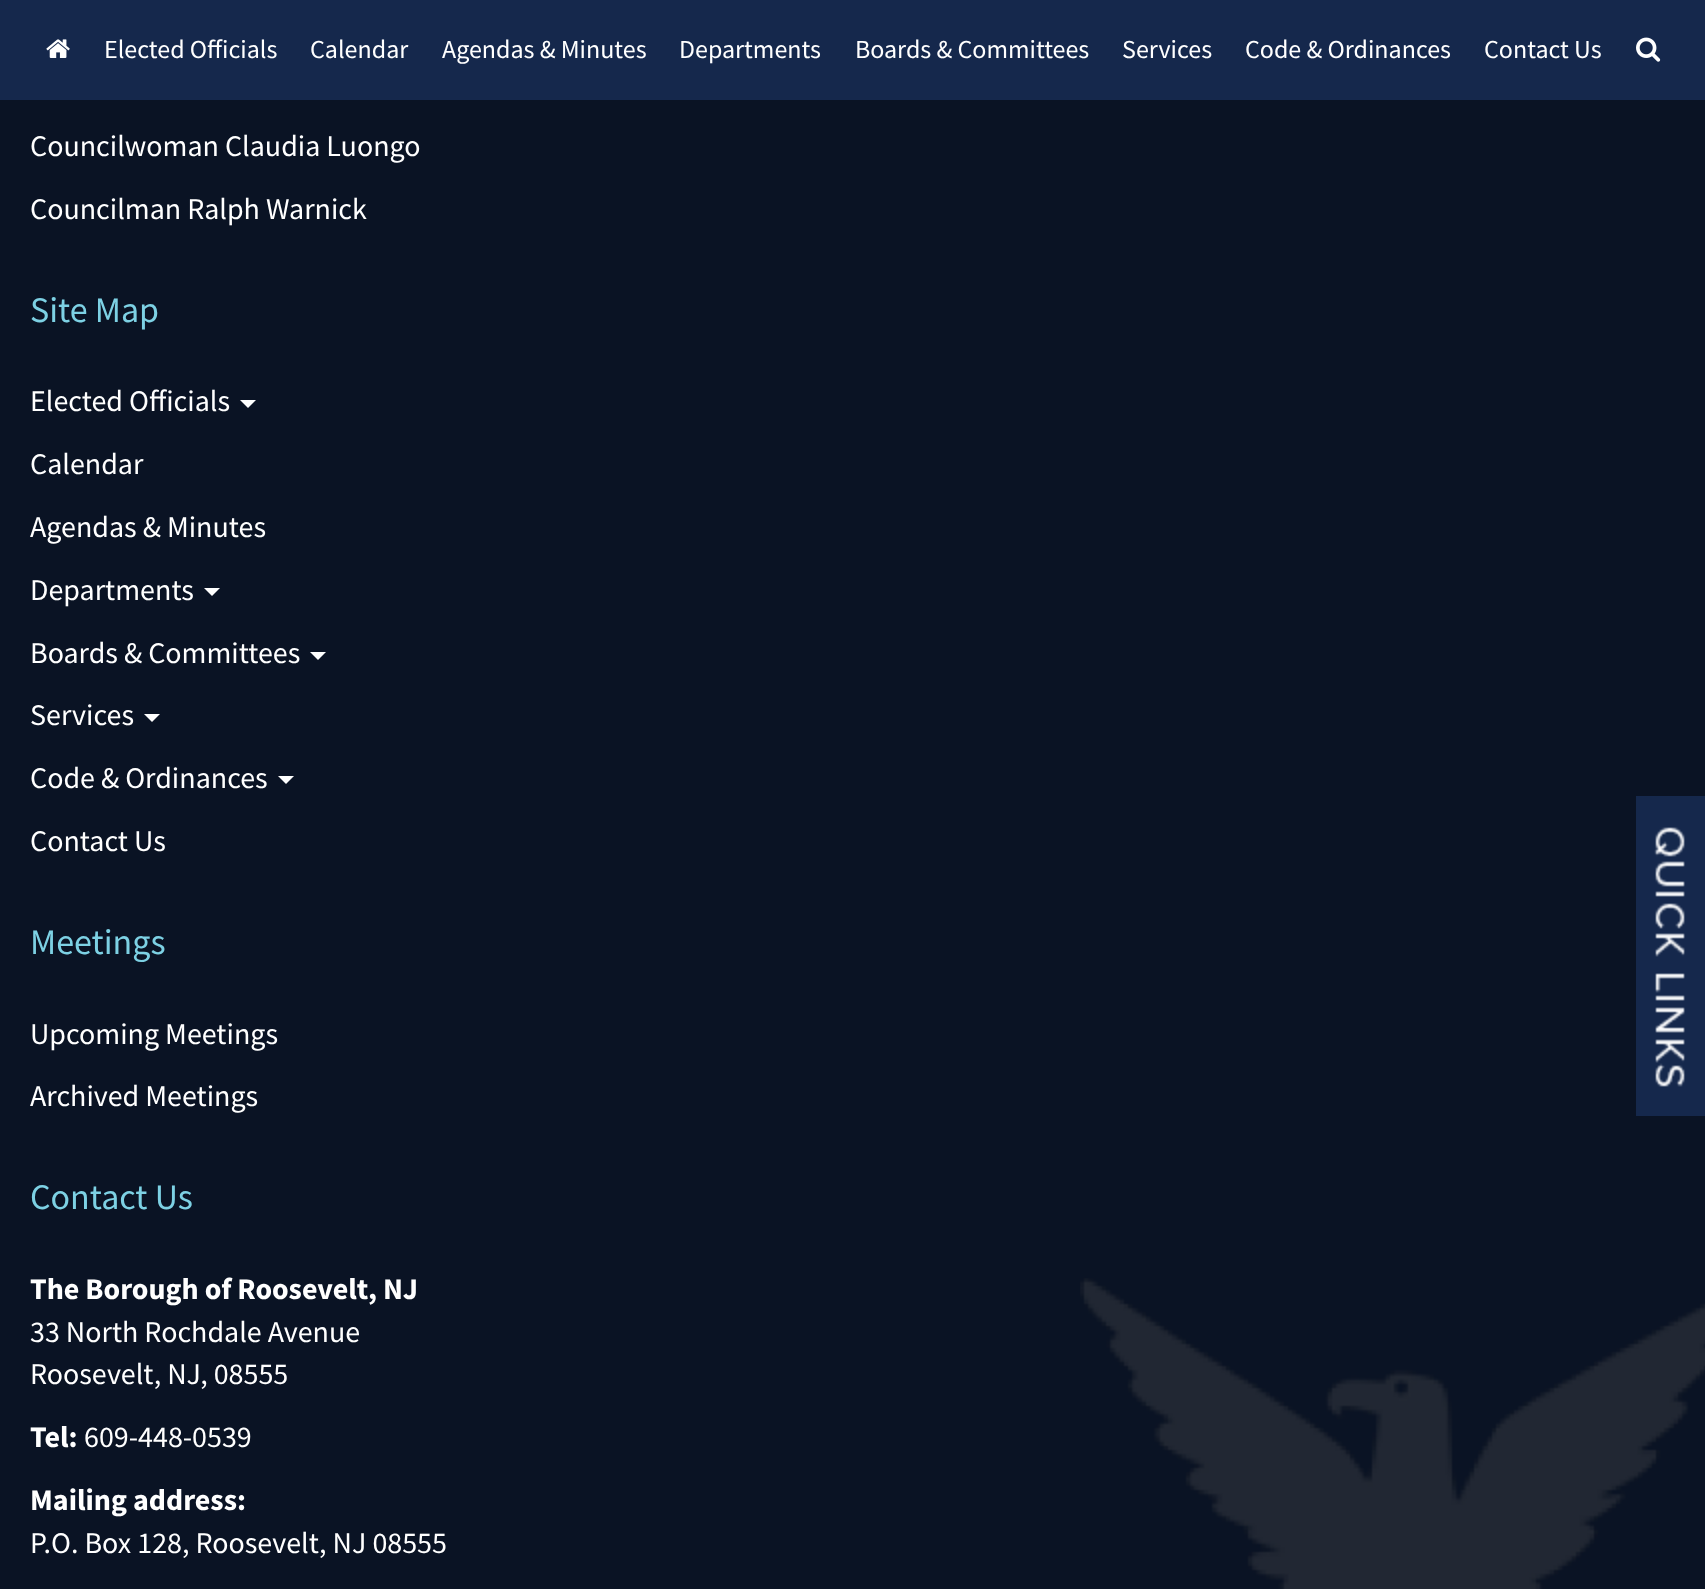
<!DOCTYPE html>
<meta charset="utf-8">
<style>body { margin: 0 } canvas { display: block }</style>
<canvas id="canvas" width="1705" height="1589"></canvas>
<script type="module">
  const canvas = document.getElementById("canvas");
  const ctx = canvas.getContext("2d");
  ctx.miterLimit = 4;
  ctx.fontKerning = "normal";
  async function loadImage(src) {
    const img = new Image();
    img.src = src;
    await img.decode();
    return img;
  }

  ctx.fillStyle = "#0a1324";
  ctx.fillRect(0, 0, 1705, 1589);
  ctx.fillStyle = "#15284c";
  ctx.fillRect(0, 0, 1705, 100);
  ctx.drawImage(await loadImage("img1.png"), 46, 39, 24, 19);
  ctx.font = "26px Source Sans Pro";
  ctx.fillStyle = "#ffffff";
  ctx.fillText("Elected Officials", 104, 58);
  ctx.fillText("Calendar", 310, 58);
  ctx.fillText("Agendas & Minutes", 442, 58);
  ctx.fillText("Departments", 679, 58);
  ctx.fillText("Boards & Committees", 855, 58);
  ctx.fillText("Services", 1122, 58);
  ctx.fillText("Code & Ordinances", 1245, 58);
  ctx.fillText("Contact Us", 1484, 58);
  ctx.drawImage(await loadImage("img2.png"), 1636, 37, 25, 25);
  ctx.drawImage(await loadImage("img3.png"), 1080, 1278, 625, 311);
  ctx.font = "30px Source Sans Pro";
  ctx.fillText("Councilwoman Claudia Luongo", 30, 156);
  ctx.fillText("Councilman Ralph Warnick", 30, 219);
  ctx.font = "36px Source Sans Pro";
  ctx.fillStyle = "#7dd1e4";
  ctx.fillText("Site Map", 30, 322);
  ctx.font = "30px Source Sans Pro";
  ctx.fillStyle = "#ffffff";
  ctx.fillText("Elected Officials", 30, 411);
  ctx.beginPath();
  ctx.moveTo(240, 400);
  ctx.lineTo(256, 400);
  ctx.lineTo(248, 408);
  ctx.closePath();
  ctx.fill();
  ctx.fillText("Calendar", 30, 474);
  ctx.fillText("Agendas & Minutes", 30, 537);
  ctx.fillText("Departments", 30, 600);
  ctx.beginPath();
  ctx.moveTo(204, 588);
  ctx.lineTo(220, 588);
  ctx.lineTo(212, 596);
  ctx.closePath();
  ctx.fill();
  ctx.fillText("Boards & Committees", 30, 663);
  ctx.beginPath();
  ctx.moveTo(310, 652);
  ctx.lineTo(326, 652);
  ctx.lineTo(318, 660);
  ctx.closePath();
  ctx.fill();
  ctx.fillText("Services", 30, 725);
  ctx.beginPath();
  ctx.moveTo(144, 714);
  ctx.lineTo(160, 714);
  ctx.lineTo(152, 722);
  ctx.closePath();
  ctx.fill();
  ctx.fillText("Code & Ordinances", 30, 788);
  ctx.beginPath();
  ctx.moveTo(278, 776);
  ctx.lineTo(294, 776);
  ctx.lineTo(286, 784);
  ctx.closePath();
  ctx.fill();
  ctx.fillText("Contact Us", 30, 851);
  ctx.font = "36px Source Sans Pro";
  ctx.fillStyle = "#7dd1e4";
  ctx.fillText("Meetings", 30, 954);
  ctx.font = "30px Source Sans Pro";
  ctx.fillStyle = "#ffffff";
  ctx.fillText("Upcoming Meetings", 30, 1044);
  ctx.fillText("Archived Meetings", 30, 1106);
  ctx.font = "36px Source Sans Pro";
  ctx.fillStyle = "#7dd1e4";
  ctx.fillText("Contact Us", 30, 1209);
  ctx.font = "bold 30px Source Sans Pro";
  ctx.fillStyle = "#ffffff";
  ctx.fillText("The Borough of Roosevelt, NJ", 30, 1299);
  ctx.font = "30px Source Sans Pro";
  ctx.fillText("33 North Rochdale Avenue", 30, 1342);
  ctx.fillText("Roosevelt, NJ, 08555", 30, 1384);
  ctx.font = "bold 30px Source Sans Pro";
  ctx.fillText("Tel:", 30, 1447);
  ctx.font = "30px Source Sans Pro";
  ctx.fillText("609-448-0539", 84, 1447);
  ctx.font = "bold 30px Source Sans Pro";
  ctx.fillText("Mailing address:", 30, 1510);
  ctx.font = "30px Source Sans Pro";
  ctx.fillText("P.O. Box 128, Roosevelt, NJ 08555", 30, 1553);
  ctx.fillStyle = "#15284c";
  ctx.fillRect(1636, 796, 69, 320);
  ctx.drawImage(await loadImage("img4.png"), 1654, 827, 31, 260);
</script>
